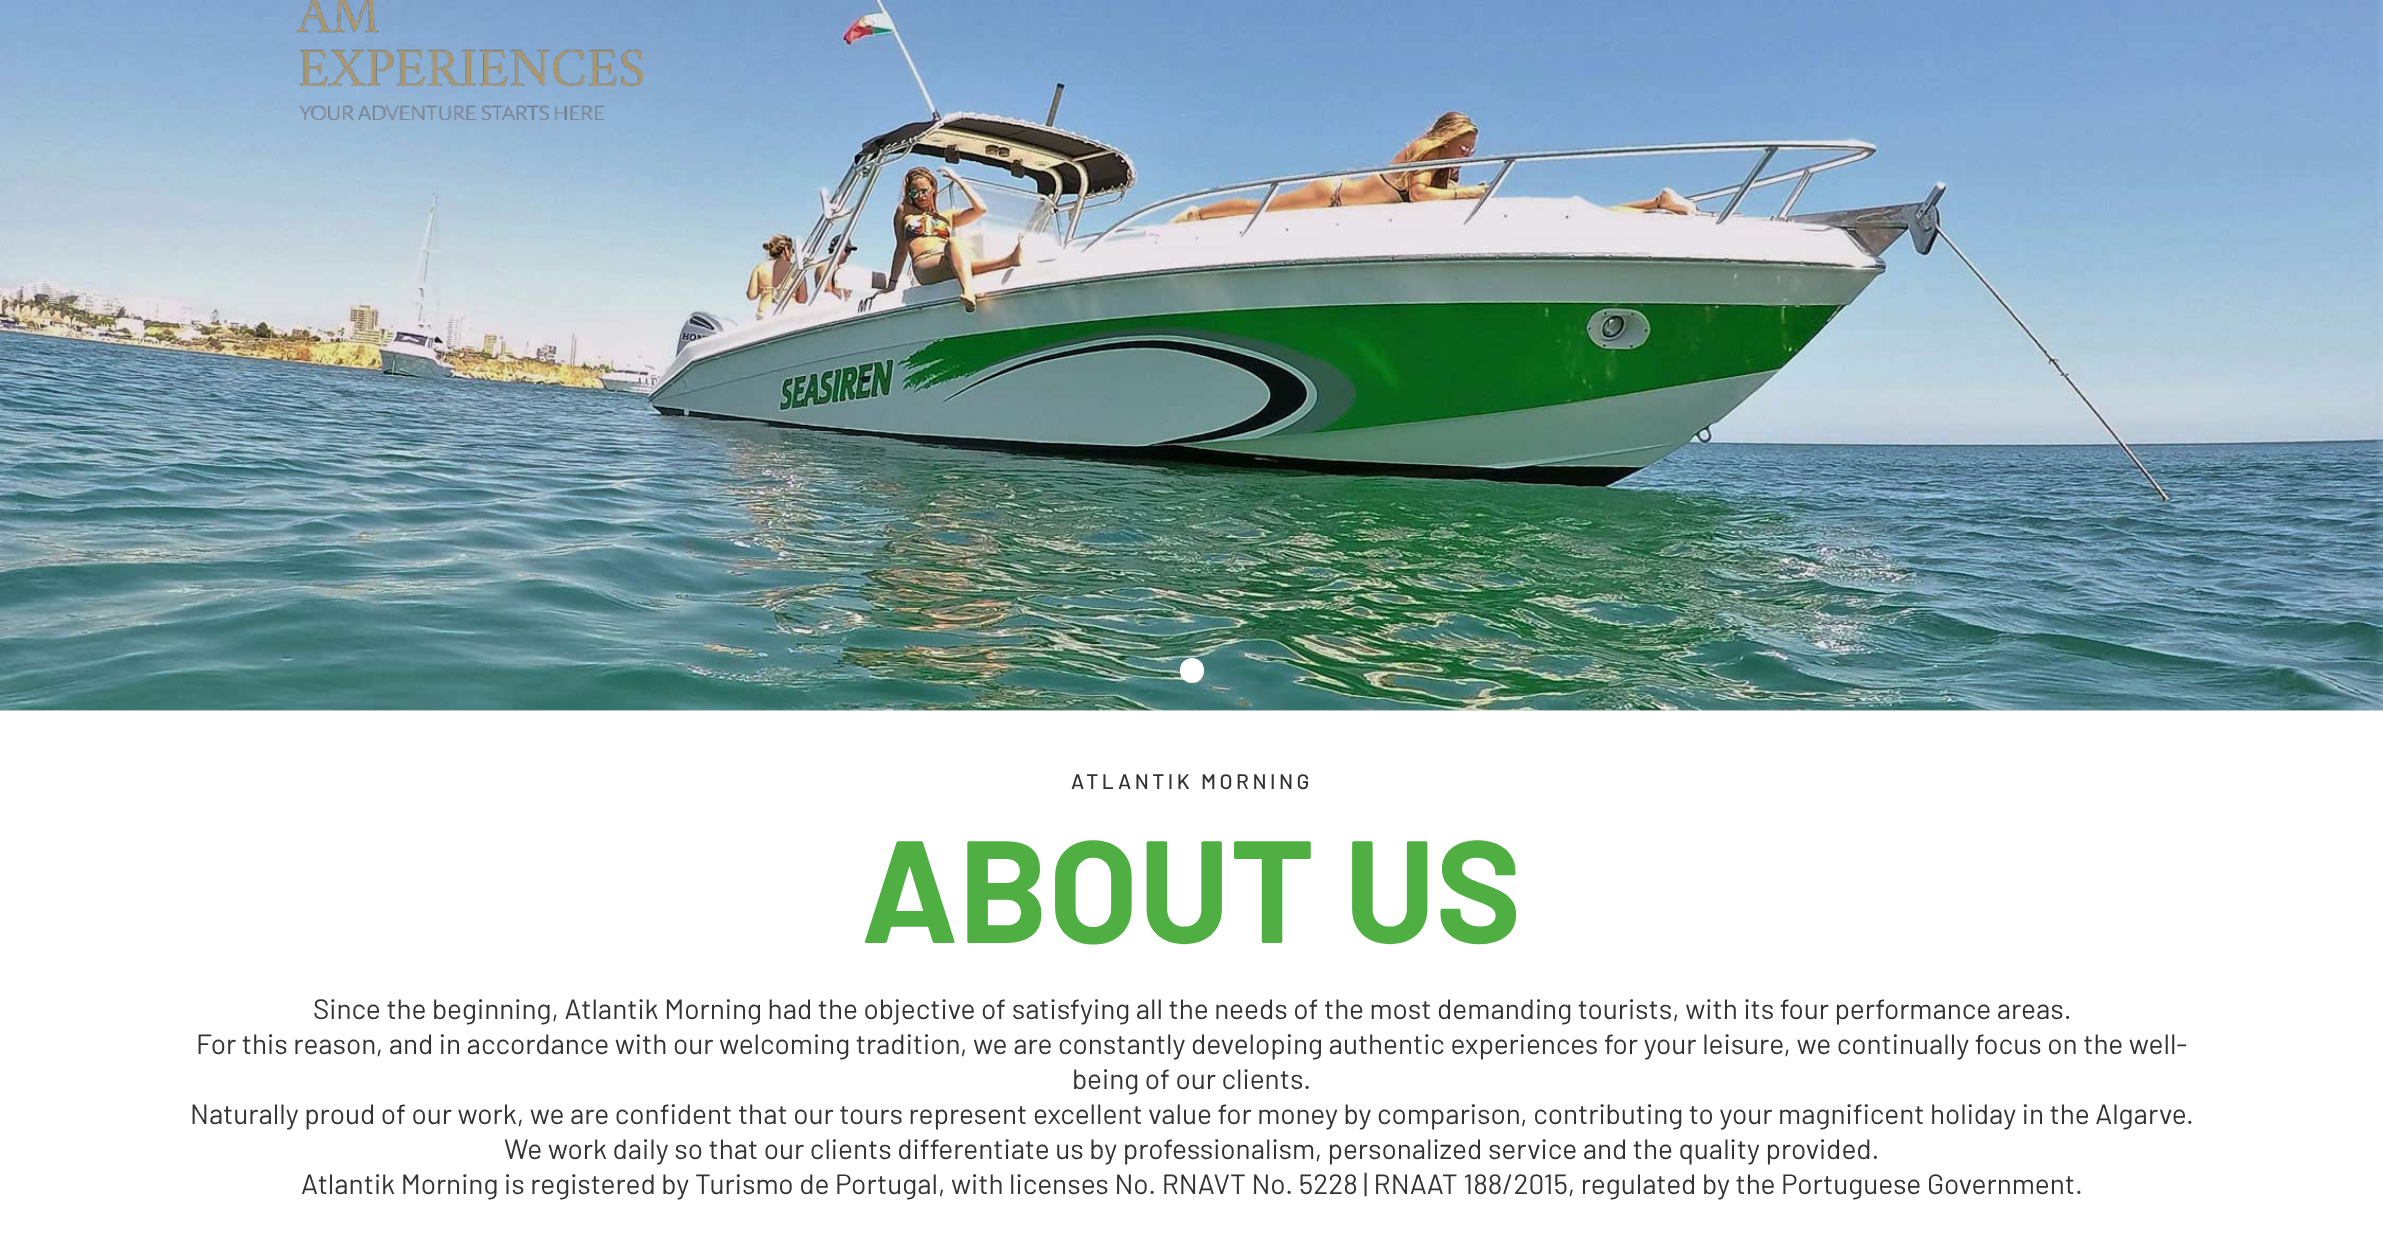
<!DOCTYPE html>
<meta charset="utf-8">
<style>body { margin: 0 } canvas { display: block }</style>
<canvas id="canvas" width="2383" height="1239"></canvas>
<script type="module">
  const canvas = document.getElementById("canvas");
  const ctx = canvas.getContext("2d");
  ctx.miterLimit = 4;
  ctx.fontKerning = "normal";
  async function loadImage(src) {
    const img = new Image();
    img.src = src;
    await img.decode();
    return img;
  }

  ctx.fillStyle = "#ffffff";
  ctx.fillRect(0, 0, 2383, 1239);
  ctx.fillStyle = "#dddddd";
  ctx.fillRect(0, 710, 2383, 1);
  ctx.drawImage(await loadImage("img1.png"), 0, 0, 2383, 711);
  ctx.fillStyle = "#ffffff";
  ctx.beginPath();
  ctx.roundRect(1180, 658, 24, 25, 12);
  ctx.fill();
  ctx.drawImage(await loadImage("img2.png"), 295, 0, 348, 120);
  ctx.letterSpacing = "3.5px";
  ctx.font = "500 21px Barlow";
  ctx.fillStyle = "#333333";
  ctx.fillText("ATLANTIK MORNING", 1071, 789);
  ctx.letterSpacing = "0px";
  ctx.font = "bold 145.25px Barlow";
  ctx.fillStyle = "#4faf42";
  ctx.fillText("ABOUT US", 861, 943);
  ctx.font = "28px Barlow";
  ctx.fillStyle = "#333333";
  ctx.fillText("Since the beginning, Atlantik Morning had the objective of satisfying all the needs of the most demanding tourists, with its four performance areas.", 313, 1019);
  ctx.fillText("For this reason, and in accordance with our welcoming tradition, we are constantly developing authentic experiences for your leisure, we continually focus on the well-", 196, 1054);
  ctx.fillText("being of our clients.", 1072, 1089);
  ctx.fillText("Naturally proud of our work, we are confident that our tours represent excellent value for money by comparison, contributing to your magnificent holiday in the Algarve.", 190, 1124);
  ctx.fillText("We work daily so that our clients differentiate us by professionalism, personalized service and the quality provided.", 504, 1159);
  ctx.fillText("Atlantik Morning is registered by Turismo de Portugal, with licenses No. RNAVT No. 5228 | RNAAT 188/2015, regulated by the Portuguese Government.", 301, 1194);
</script>
